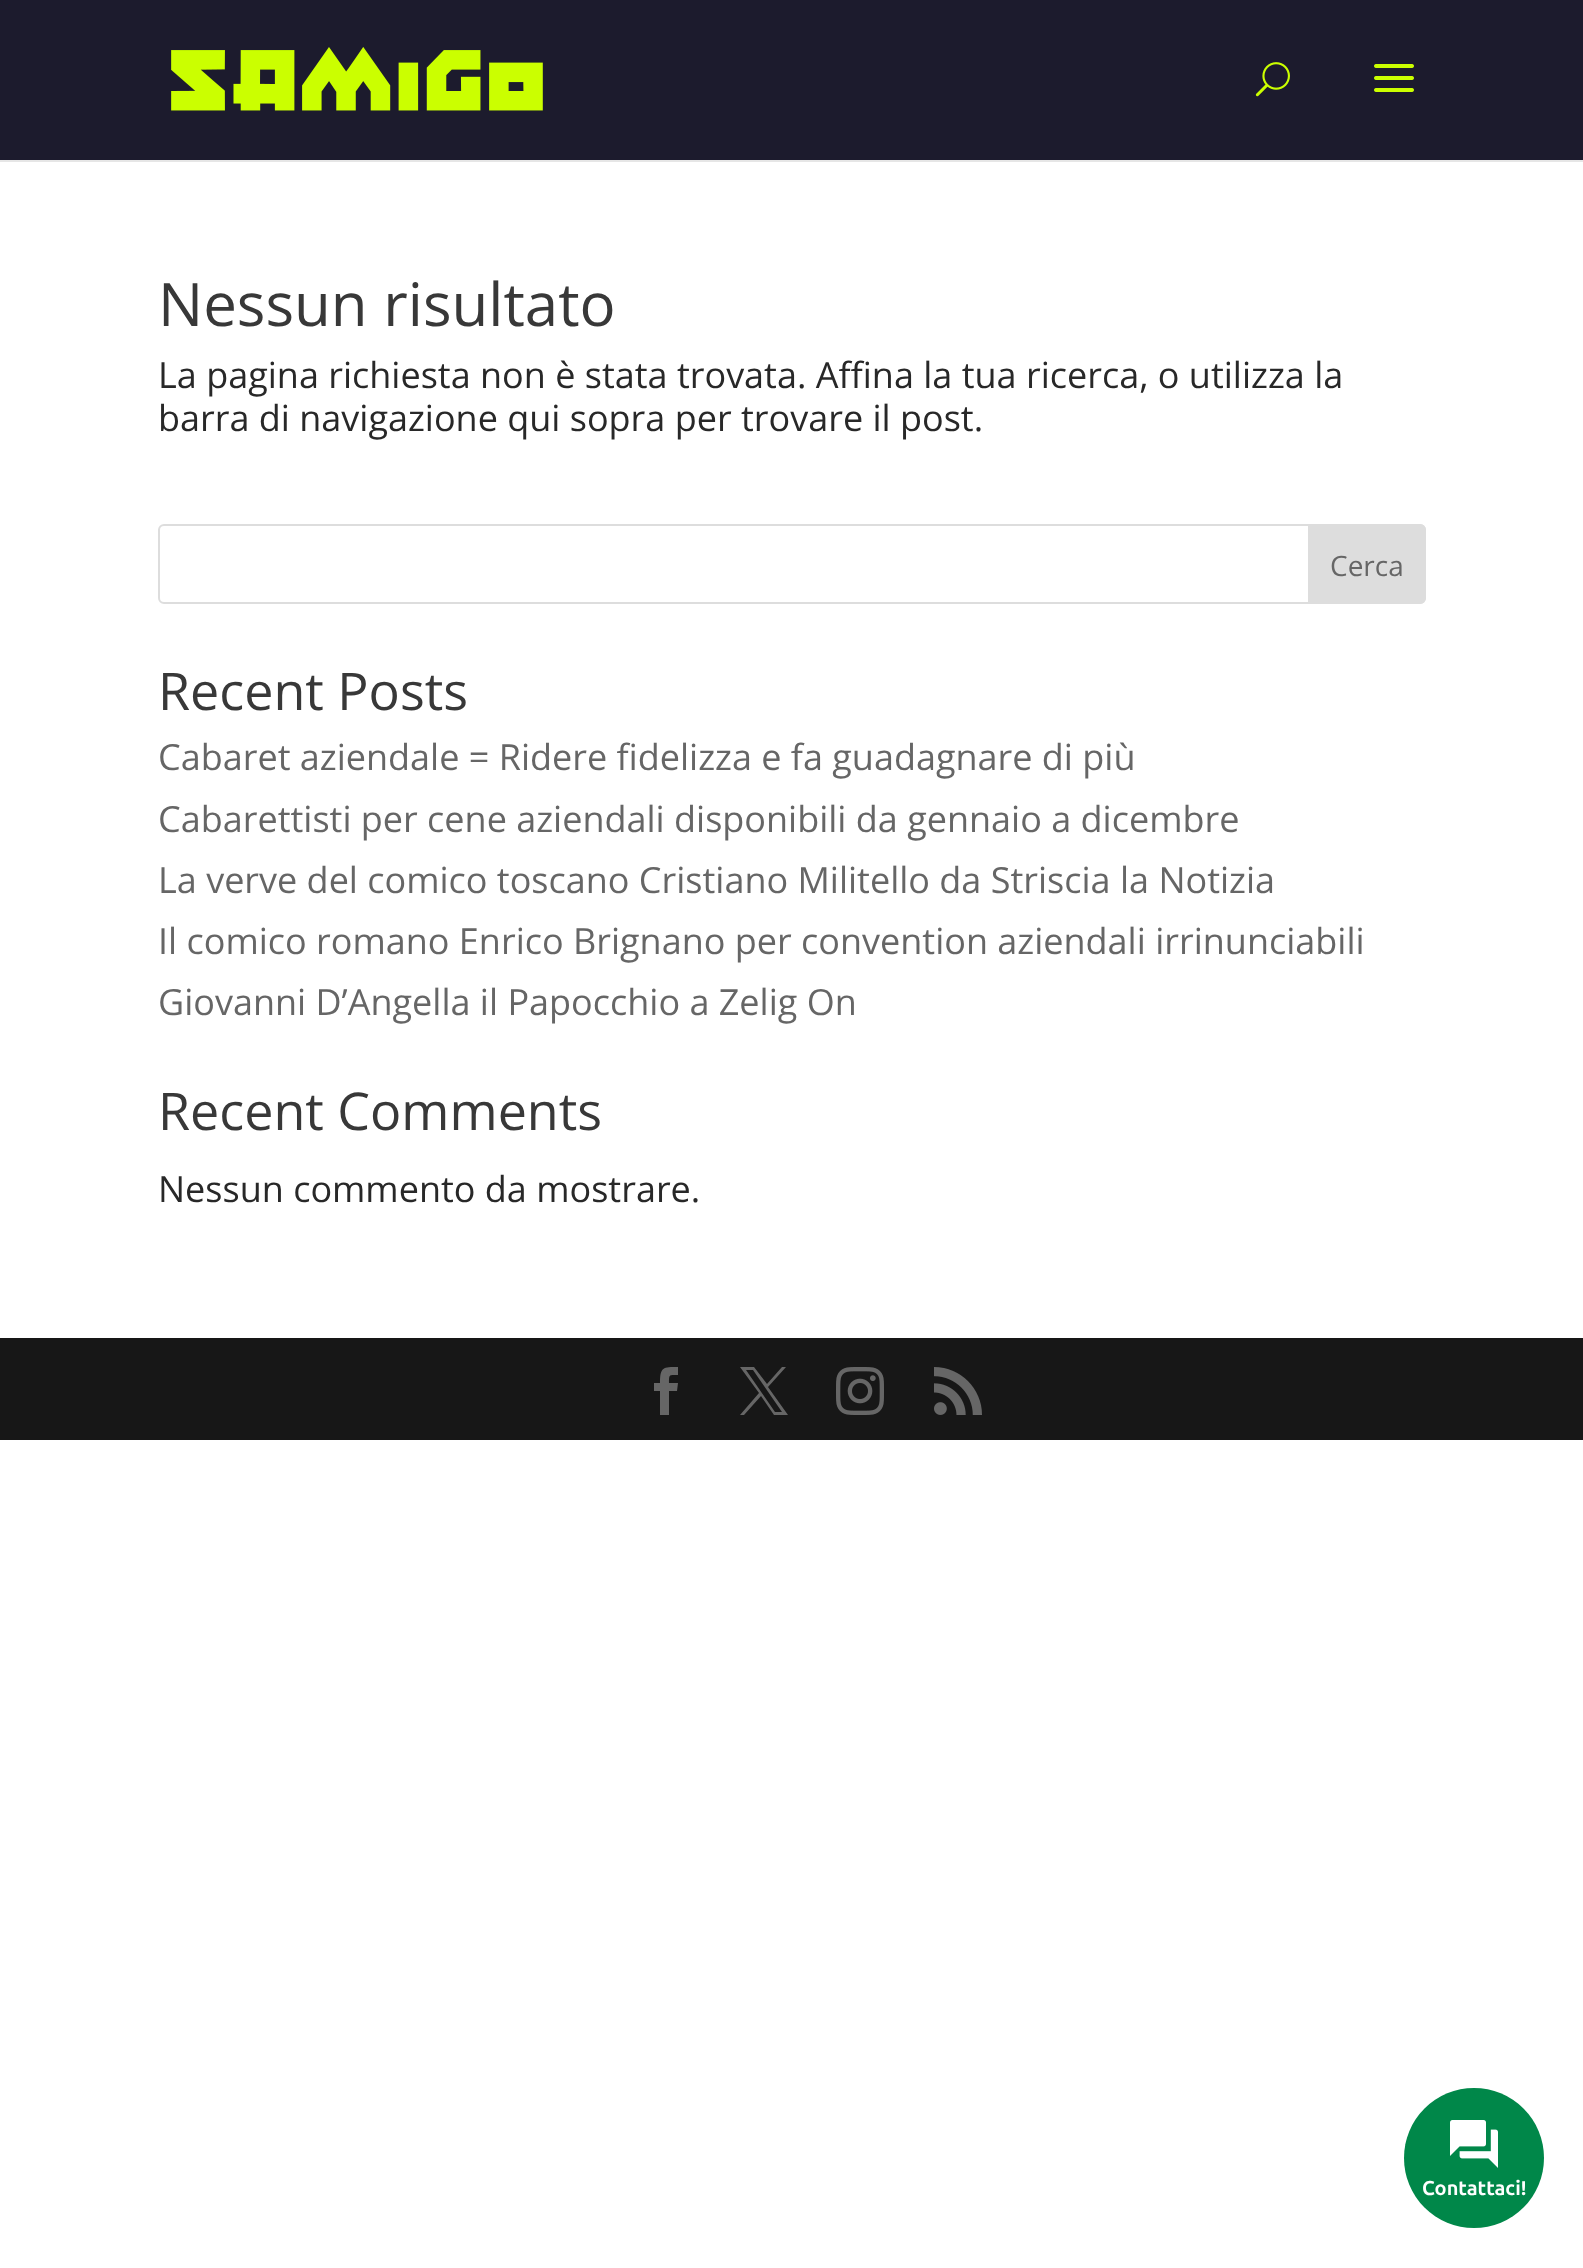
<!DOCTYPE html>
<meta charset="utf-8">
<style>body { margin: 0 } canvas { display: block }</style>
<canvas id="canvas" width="1583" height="2268"></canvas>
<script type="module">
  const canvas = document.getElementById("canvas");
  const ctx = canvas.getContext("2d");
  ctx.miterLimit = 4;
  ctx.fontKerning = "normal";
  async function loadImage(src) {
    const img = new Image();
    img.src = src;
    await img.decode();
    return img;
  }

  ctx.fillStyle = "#ffffff";
  ctx.fillRect(0, 0, 1583, 2268);
  ctx.fillStyle = "#e6e6e6";
  ctx.fillRect(0, 160, 1583, 2);
  ctx.fillStyle = "#1c1b2d";
  ctx.fillRect(0, 0, 1583, 160);
  ctx.drawImage(await loadImage("img1.png"), 171, 47, 372, 64);
  ctx.drawImage(await loadImage("img2.png"), 1255, 62, 35, 35);
  ctx.drawImage(await loadImage("img3.png"), 1374, 64, 40, 28);
  ctx.font = "60px Open Sans";
  ctx.fillStyle = "#383838";
  ctx.fillText("Nessun risultato", 158, 326);
  ctx.font = "36px Open Sans";
  ctx.fillStyle = "#282828";
  ctx.fillText("La pagina richiesta non è stata trovata. Affina la tua ricerca, o utilizza la", 158, 388);
  ctx.fillText("barra di navigazione qui sopra per trovare il post.", 158, 431);
  ctx.beginPath();
  ctx.roundRect(159, 525, 1266, 78, 5);
  ctx.strokeStyle = "#dddddd";
  ctx.lineWidth = 2;
  ctx.stroke();
  ctx.fillStyle = "#dddddd";
  ctx.beginPath();
  ctx.roundRect(1309, 525, 116, 78, [0, 5, 5, 0]);
  ctx.fill();
  ctx.stroke();
  ctx.font = "28px Open Sans";
  ctx.fillStyle = "#666666";
  ctx.fillText("Cerca", 1330, 576);
  ctx.font = "52px Open Sans";
  ctx.fillStyle = "#383838";
  ctx.fillText("Recent Posts", 158, 710);
  ctx.font = "36px Open Sans";
  ctx.fillStyle = "#666666";
  ctx.fillText("Cabaret aziendale = Ridere fidelizza e fa guadagnare di più", 158, 770);
  ctx.fillText("Cabarettisti per cene aziendali disponibili da gennaio a dicembre", 158, 832);
  ctx.fillText("La verve del comico toscano Cristiano Militello da Striscia la Notizia", 158, 893);
  ctx.fillText("Il comico romano Enrico Brignano per convention aziendali irrinunciabili", 158, 954);
  ctx.fillText("Giovanni D’Angella il Papocchio a Zelig On", 158, 1015);
  ctx.font = "52px Open Sans";
  ctx.fillStyle = "#383838";
  ctx.fillText("Recent Comments", 158, 1130);
  ctx.font = "36px Open Sans";
  ctx.fillStyle = "#282828";
  ctx.fillText("Nessun commento da mostrare.", 158, 1202);
  ctx.fillStyle = "#171717";
  ctx.fillRect(0, 1338, 1583, 102);
  ctx.fillStyle = "#666666";
  ctx.beginPath();
  ctx.moveTo(660, 1415);
  ctx.lineTo(669, 1415);
  ctx.lineTo(669, 1391);
  ctx.lineTo(677, 1391);
  ctx.lineTo(678, 1383);
  ctx.lineTo(669, 1383);
  ctx.bezierCurveTo(669, 1374, 669, 1375, 678, 1375);
  ctx.lineTo(678, 1367);
  ctx.bezierCurveTo(663, 1367, 660, 1367, 660, 1383);
  ctx.lineTo(654, 1383);
  ctx.lineTo(654, 1391);
  ctx.lineTo(660, 1391);
  ctx.closePath();
  ctx.fill();
  ctx.beginPath();
  ctx.moveTo(740, 1367);
  ctx.lineTo(759, 1393);
  ctx.lineTo(740, 1415);
  ctx.lineTo(744, 1415);
  ctx.lineTo(761, 1396);
  ctx.lineTo(774, 1415);
  ctx.lineTo(788, 1415);
  ctx.lineTo(768, 1387);
  ctx.lineTo(786, 1367);
  ctx.lineTo(782, 1367);
  ctx.lineTo(767, 1384);
  ctx.lineTo(754, 1367);
  ctx.closePath();
  ctx.moveTo(746, 1370);
  ctx.lineTo(753, 1370);
  ctx.lineTo(782, 1412);
  ctx.lineTo(775, 1412);
  ctx.closePath();
  ctx.fill();
  ctx.drawImage(await loadImage("img4.png"), 836, 1367, 48, 48);
  ctx.drawImage(await loadImage("img5.png"), 934, 1367, 48, 48);
  ctx.fillStyle = "#008749";
  ctx.beginPath();
  ctx.arc(1474, 2158, 70, 0, Math.PI * 2);
  ctx.fill();
  ctx.drawImage(await loadImage("img6.png"), 1450, 2120, 48, 48);
  ctx.font = "bold 20px Ubuntu";
  ctx.fillStyle = "#ffffff";
  ctx.fillText("Contattaci!", 1422, 2195);
</script>
